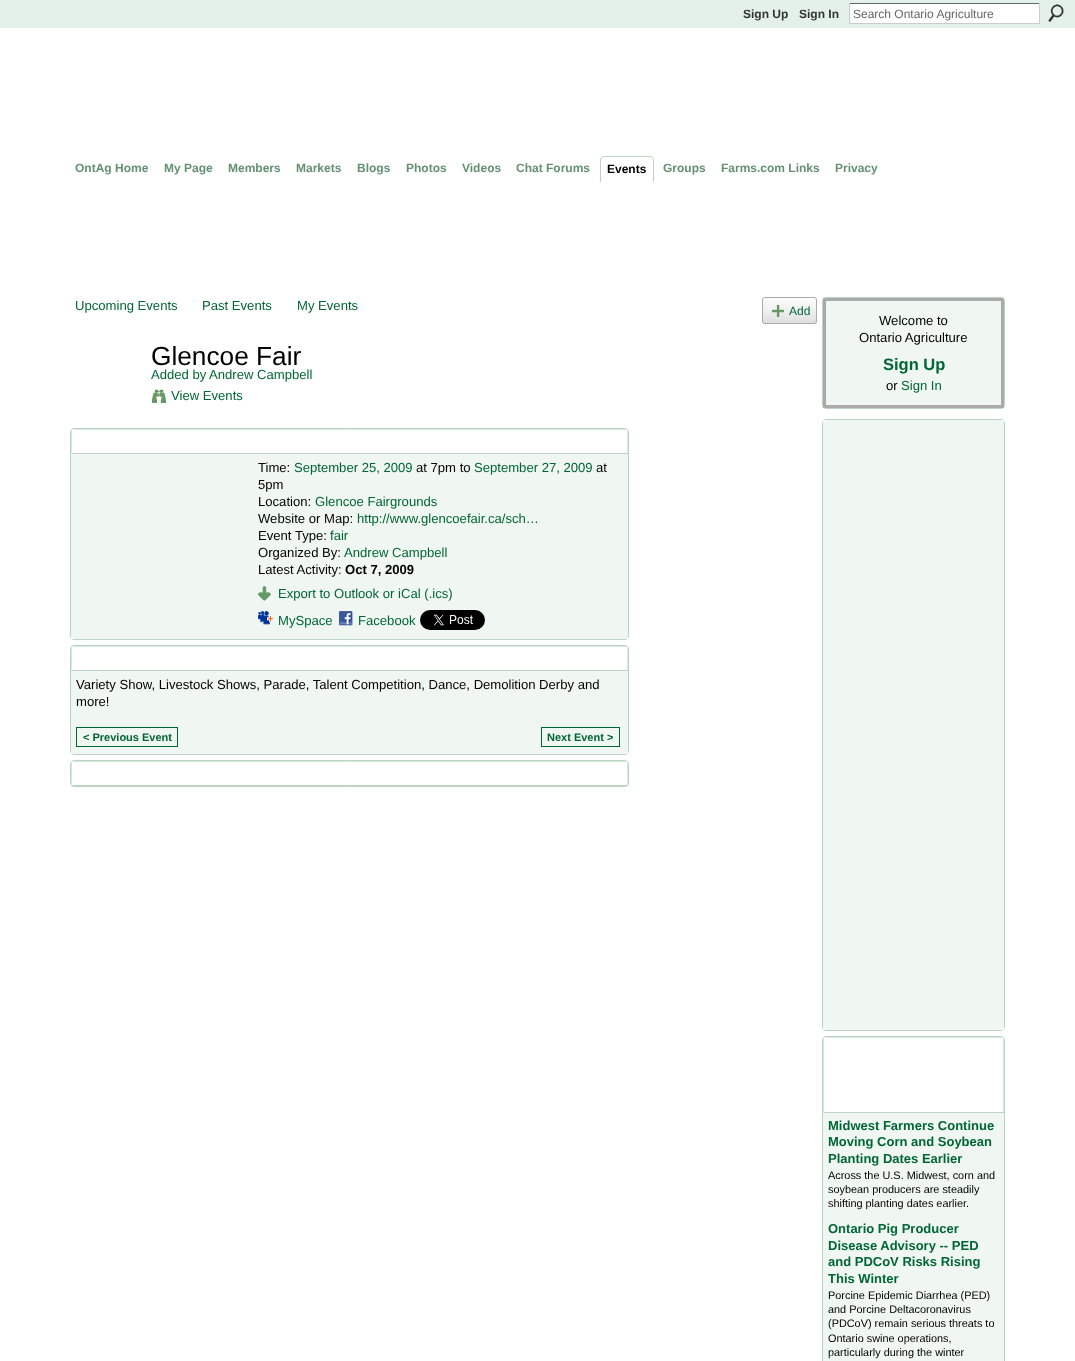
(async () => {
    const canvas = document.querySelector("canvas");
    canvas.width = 1075;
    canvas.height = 1361;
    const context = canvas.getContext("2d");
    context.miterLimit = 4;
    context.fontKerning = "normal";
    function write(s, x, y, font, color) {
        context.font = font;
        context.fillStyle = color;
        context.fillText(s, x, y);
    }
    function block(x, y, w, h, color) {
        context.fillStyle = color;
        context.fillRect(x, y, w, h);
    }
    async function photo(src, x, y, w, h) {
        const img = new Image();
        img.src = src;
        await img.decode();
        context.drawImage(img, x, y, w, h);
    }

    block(0, 0, 1075, 1361, "rgb(255, 255, 255)");
    block(0, 0, 1075, 28, "rgb(227, 241, 232)");
    write("Sign Up", 743, 18, "bold 12px Liberation Sans", "rgb(51, 51, 51)");
    write("Sign In", 799, 18, "bold 12px Liberation Sans", "rgb(51, 51, 51)");
    block(850, 4, 189, 19, "rgb(255, 255, 255)");
    block(849, 3, 191, 1, "rgb(102, 102, 102)");
    block(1039, 3, 1, 21, "rgb(204, 204, 204)");
    block(849, 23, 191, 1, "rgb(204, 204, 204)");
    block(849, 3, 1, 21, "rgb(204, 204, 204)");
    write("Search Ontario Agriculture", 853, 18, "12px Liberation Sans", "rgb(102, 102, 102)");
    await photo("media/1.png", 1048, 4, 16, 18);
    write("OntAg Home", 75, 172, "bold 12px Liberation Sans", "rgb(100, 145, 115)");
    write("My Page", 164, 172, "bold 12px Liberation Sans", "rgb(100, 145, 115)");
    write("Members", 228, 172, "bold 12px Liberation Sans", "rgb(100, 145, 115)");
    write("Markets", 296, 172, "bold 12px Liberation Sans", "rgb(100, 145, 115)");
    write("Blogs", 357, 172, "bold 12px Liberation Sans", "rgb(100, 145, 115)");
    write("Photos", 406, 172, "bold 12px Liberation Sans", "rgb(100, 145, 115)");
    write("Videos", 462, 172, "bold 12px Liberation Sans", "rgb(100, 145, 115)");
    write("Chat Forums", 516, 172, "bold 12px Liberation Sans", "rgb(100, 145, 115)");
    context.fillStyle = "rgb(188, 212, 196)";
    context.beginPath();
    context.moveTo(604, 156);
    context.lineTo(650, 156);
    context.bezierCurveTo(652, 156, 654, 158, 654, 160);
    context.lineTo(654, 182);
    context.lineTo(600, 182);
    context.lineTo(600, 160);
    context.bezierCurveTo(600, 158, 602, 156, 604, 156);
    context.closePath();
    context.moveTo(604, 157);
    context.lineTo(650, 157);
    context.bezierCurveTo(652, 157, 653, 158, 653, 160);
    context.lineTo(653, 182);
    context.lineTo(601, 182);
    context.lineTo(601, 160);
    context.bezierCurveTo(601, 158, 602, 157, 604, 157);
    context.closePath();
    context.fill("evenodd");
    write("Events", 607, 173, "bold 12px Liberation Sans", "rgb(0, 0, 0)");
    write("Groups", 663, 172, "bold 12px Liberation Sans", "rgb(100, 145, 115)");
    write("Farms.com Links", 721, 172, "bold 12px Liberation Sans", "rgb(100, 145, 115)");
    write("Privacy", 835, 172, "bold 12px Liberation Sans", "rgb(100, 145, 115)");
    write("Upcoming Events", 75, 310, "13.1px Liberation Sans", "rgb(0, 102, 51)");
    write("Past Events", 202, 310, "13.1px Liberation Sans", "rgb(0, 102, 51)");
    write("My Events", 297, 310, "13.1px Liberation Sans", "rgb(0, 102, 51)");
    await photo("media/2.png", 762, 300, 55, 24);
    context.beginPath();
    context.roundRect(762.5, 297.5, 54, 26, 2.5);
    context.strokeStyle = "rgb(170, 170, 170)";
    context.stroke();
    await photo("media/3.png", 772, 305, 12, 12);
    write("Add", 789, 315, "12px Liberation Sans", "rgb(0, 102, 51)");
    write("Glencoe Fair", 151, 365, "26.25px Liberation Sans", "rgb(0, 0, 0)");
    write("Added by", 151, 379, "13.1px Liberation Sans", "rgb(0, 102, 51)");
    write("Andrew Campbell", 209, 379, "13.1px Liberation Sans", "rgb(0, 102, 51)");
    await photo("media/4.png", 152, 389, 14, 14);
    write("View Events", 171, 400, "13.1px Liberation Sans", "rgb(0, 102, 51)");
    context.beginPath();
    context.roundRect(70.5, 428.5, 558, 211, 3.5);
    context.strokeStyle = "rgb(188, 212, 196)";
    context.stroke();
    block(71, 429, 557, 1, "rgb(217, 233, 222)");
    block(627, 429, 1, 25, "rgb(217, 233, 222)");
    block(71, 453, 557, 1, "rgb(188, 212, 196)");
    block(71, 429, 1, 25, "rgb(217, 233, 222)");
    block(71, 454, 557, 185, "rgb(240, 247, 242)");
    write("Time:", 258, 472, "13.1px Liberation Sans", "rgb(0, 0, 0)");
    write("September 25, 2009", 294, 472, "13.1px Liberation Sans", "rgb(0, 102, 51)");
    write("at 7pm to", 416, 472, "13.1px Liberation Sans", "rgb(0, 0, 0)");
    write("September 27, 2009", 474, 472, "13.1px Liberation Sans", "rgb(0, 102, 51)");
    write("at", 596, 472, "13.1px Liberation Sans", "rgb(0, 0, 0)");
    write("5pm", 258, 489, "13.1px Liberation Sans", "rgb(0, 0, 0)");
    write("Location:", 258, 506, "13.1px Liberation Sans", "rgb(0, 0, 0)");
    write("Glencoe Fairgrounds", 315, 506, "13.1px Liberation Sans", "rgb(0, 102, 51)");
    write("Website or Map:", 258, 523, "13.1px Liberation Sans", "rgb(0, 0, 0)");
    write("http://www.glencoefair.ca/sch…", 357, 523, "13.1px Liberation Sans", "rgb(0, 102, 51)");
    write("Event Type:", 258, 540, "13.1px Liberation Sans", "rgb(0, 0, 0)");
    write("fair", 330, 540, "13.1px Liberation Sans", "rgb(0, 102, 51)");
    write("Organized By:", 258, 557, "13.1px Liberation Sans", "rgb(0, 0, 0)");
    write("Andrew Campbell", 344, 557, "13.1px Liberation Sans", "rgb(0, 102, 51)");
    write("Latest Activity:", 258, 574, "13.1px Liberation Sans", "rgb(0, 0, 0)");
    write("Oct 7, 2009", 345, 574, "bold 13.1px Liberation Sans", "rgb(0, 0, 0)");
    await photo("media/5.png", 258, 586, 13, 15);
    write("Export to Outlook or iCal (.ics)", 278, 598, "13.1px Liberation Sans", "rgb(0, 102, 51)");
    await photo("media/6.png", 258, 611, 16, 14);
    write("MySpace", 278, 625, "13.1px Liberation Sans", "rgb(0, 102, 51)");
    await photo("media/7.png", 339, 611, 14, 15);
    write("Facebook", 358, 625, "13.1px Liberation Sans", "rgb(0, 102, 51)");
    await photo("media/8.png", 420, 610, 65, 20);
    context.beginPath();
    context.roundRect(70.5, 645.5, 558, 109, 3.5);
    context.stroke();
    block(71, 646, 557, 1, "rgb(217, 233, 222)");
    block(627, 646, 1, 25, "rgb(217, 233, 222)");
    block(71, 670, 557, 1, "rgb(188, 212, 196)");
    block(71, 646, 1, 25, "rgb(217, 233, 222)");
    block(71, 671, 557, 83, "rgb(240, 247, 242)");
    write("Variety Show, Livestock Shows, Parade, Talent Competition, Dance, Demolition Derby and", 76, 689, "13.1px Liberation Sans", "rgb(0, 0, 0)");
    write("more!", 76, 706, "13.1px Liberation Sans", "rgb(0, 0, 0)");
    context.strokeStyle = "rgb(0, 102, 51)";
    context.strokeRect(76.5, 727.5, 101, 19);
    write("< Previous Event", 83, 741, "bold 11px Liberation Sans", "rgb(0, 102, 51)");
    context.strokeRect(541.5, 727.5, 78, 19);
    write("Next Event >", 547, 741, "bold 11px Liberation Sans", "rgb(0, 102, 51)");
    context.beginPath();
    context.roundRect(70.5, 760.5, 558, 26, 3.5);
    context.strokeStyle = "rgb(188, 212, 196)";
    context.stroke();
    block(71, 761, 557, 1, "rgb(217, 233, 222)");
    block(627, 761, 1, 25, "rgb(217, 233, 222)");
    block(71, 785, 557, 1, "rgb(188, 212, 196)");
    block(71, 761, 1, 25, "rgb(217, 233, 222)");
    context.beginPath();
    context.roundRect(822.5, 297.5, 182, 111, 3.5);
    context.stroke();
    context.fillStyle = "rgb(240, 247, 242)";
    context.beginPath();
    context.rect(824.5, 299.5, 178, 107);
    context.fill();
    context.strokeStyle = "rgb(170, 170, 170)";
    context.lineWidth = 3;
    context.stroke();
    write("Welcome to", 879, 325, "13.1px Liberation Sans", "rgb(0, 0, 0)");
    write("Ontario Agriculture", 859, 342, "13.1px Liberation Sans", "rgb(0, 0, 0)");
    write("Sign Up", 883, 370, "bold 16.5px Liberation Sans", "rgb(0, 102, 51)");
    write("or", 886, 390, "13.1px Liberation Sans", "rgb(0, 0, 0)");
    write("Sign In", 901, 390, "13.1px Liberation Sans", "rgb(0, 102, 51)");
    context.beginPath();
    context.roundRect(822.5, 419.5, 182, 611, 3.5);
    context.strokeStyle = "rgb(188, 212, 196)";
    context.lineWidth = 1;
    context.stroke();
    block(823, 420, 181, 610, "rgb(240, 247, 242)");
    context.beginPath();
    context.roundRect(822.5, 1036.5, 182, 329, 3.5);
    context.stroke();
    block(823, 1037, 181, 1, "rgb(217, 233, 222)");
    block(1003, 1037, 1, 76, "rgb(217, 233, 222)");
    block(823, 1112, 181, 1, "rgb(188, 212, 196)");
    block(823, 1037, 1, 76, "rgb(217, 233, 222)");
    block(823, 1113, 181, 248, "rgb(240, 247, 242)");
    write("Midwest Farmers Continue", 828, 1130, "bold 13px Liberation Sans", "rgb(0, 102, 51)");
    write("Moving Corn and Soybean", 828, 1146, "bold 13px Liberation Sans", "rgb(0, 102, 51)");
    write("Planting Dates Earlier", 828, 1163, "bold 13px Liberation Sans", "rgb(0, 102, 51)");
    write("Across the U.S. Midwest, corn and", 828, 1179, "10.9px Liberation Sans", "rgb(0, 0, 0)");
    write("soybean producers are steadily", 828, 1193, "10.9px Liberation Sans", "rgb(0, 0, 0)");
    write("shifting planting dates earlier.", 828, 1207, "10.9px Liberation Sans", "rgb(0, 0, 0)");
    write("Ontario Pig Producer", 828, 1233, "bold 13px Liberation Sans", "rgb(0, 102, 51)");
    write("Disease Advisory -- PED", 828, 1250, "bold 13px Liberation Sans", "rgb(0, 102, 51)");
    write("and PDCoV Risks Rising", 828, 1266, "bold 13px Liberation Sans", "rgb(0, 102, 51)");
    write("This Winter", 828, 1283, "bold 13px Liberation Sans", "rgb(0, 102, 51)");
    write("Porcine Epidemic Diarrhea (PED)", 828, 1299, "10.9px Liberation Sans", "rgb(0, 0, 0)");
    write("and Porcine Deltacoronavirus", 828, 1313, "10.9px Liberation Sans", "rgb(0, 0, 0)");
    write("(PDCoV) remain serious threats to", 828, 1327, "10.9px Liberation Sans", "rgb(0, 0, 0)");
    write("Ontario swine operations,", 828, 1342, "10.9px Liberation Sans", "rgb(0, 0, 0)");
    write("particularly during the winter", 828, 1356, "10.9px Liberation Sans", "rgb(0, 0, 0)");
})();
